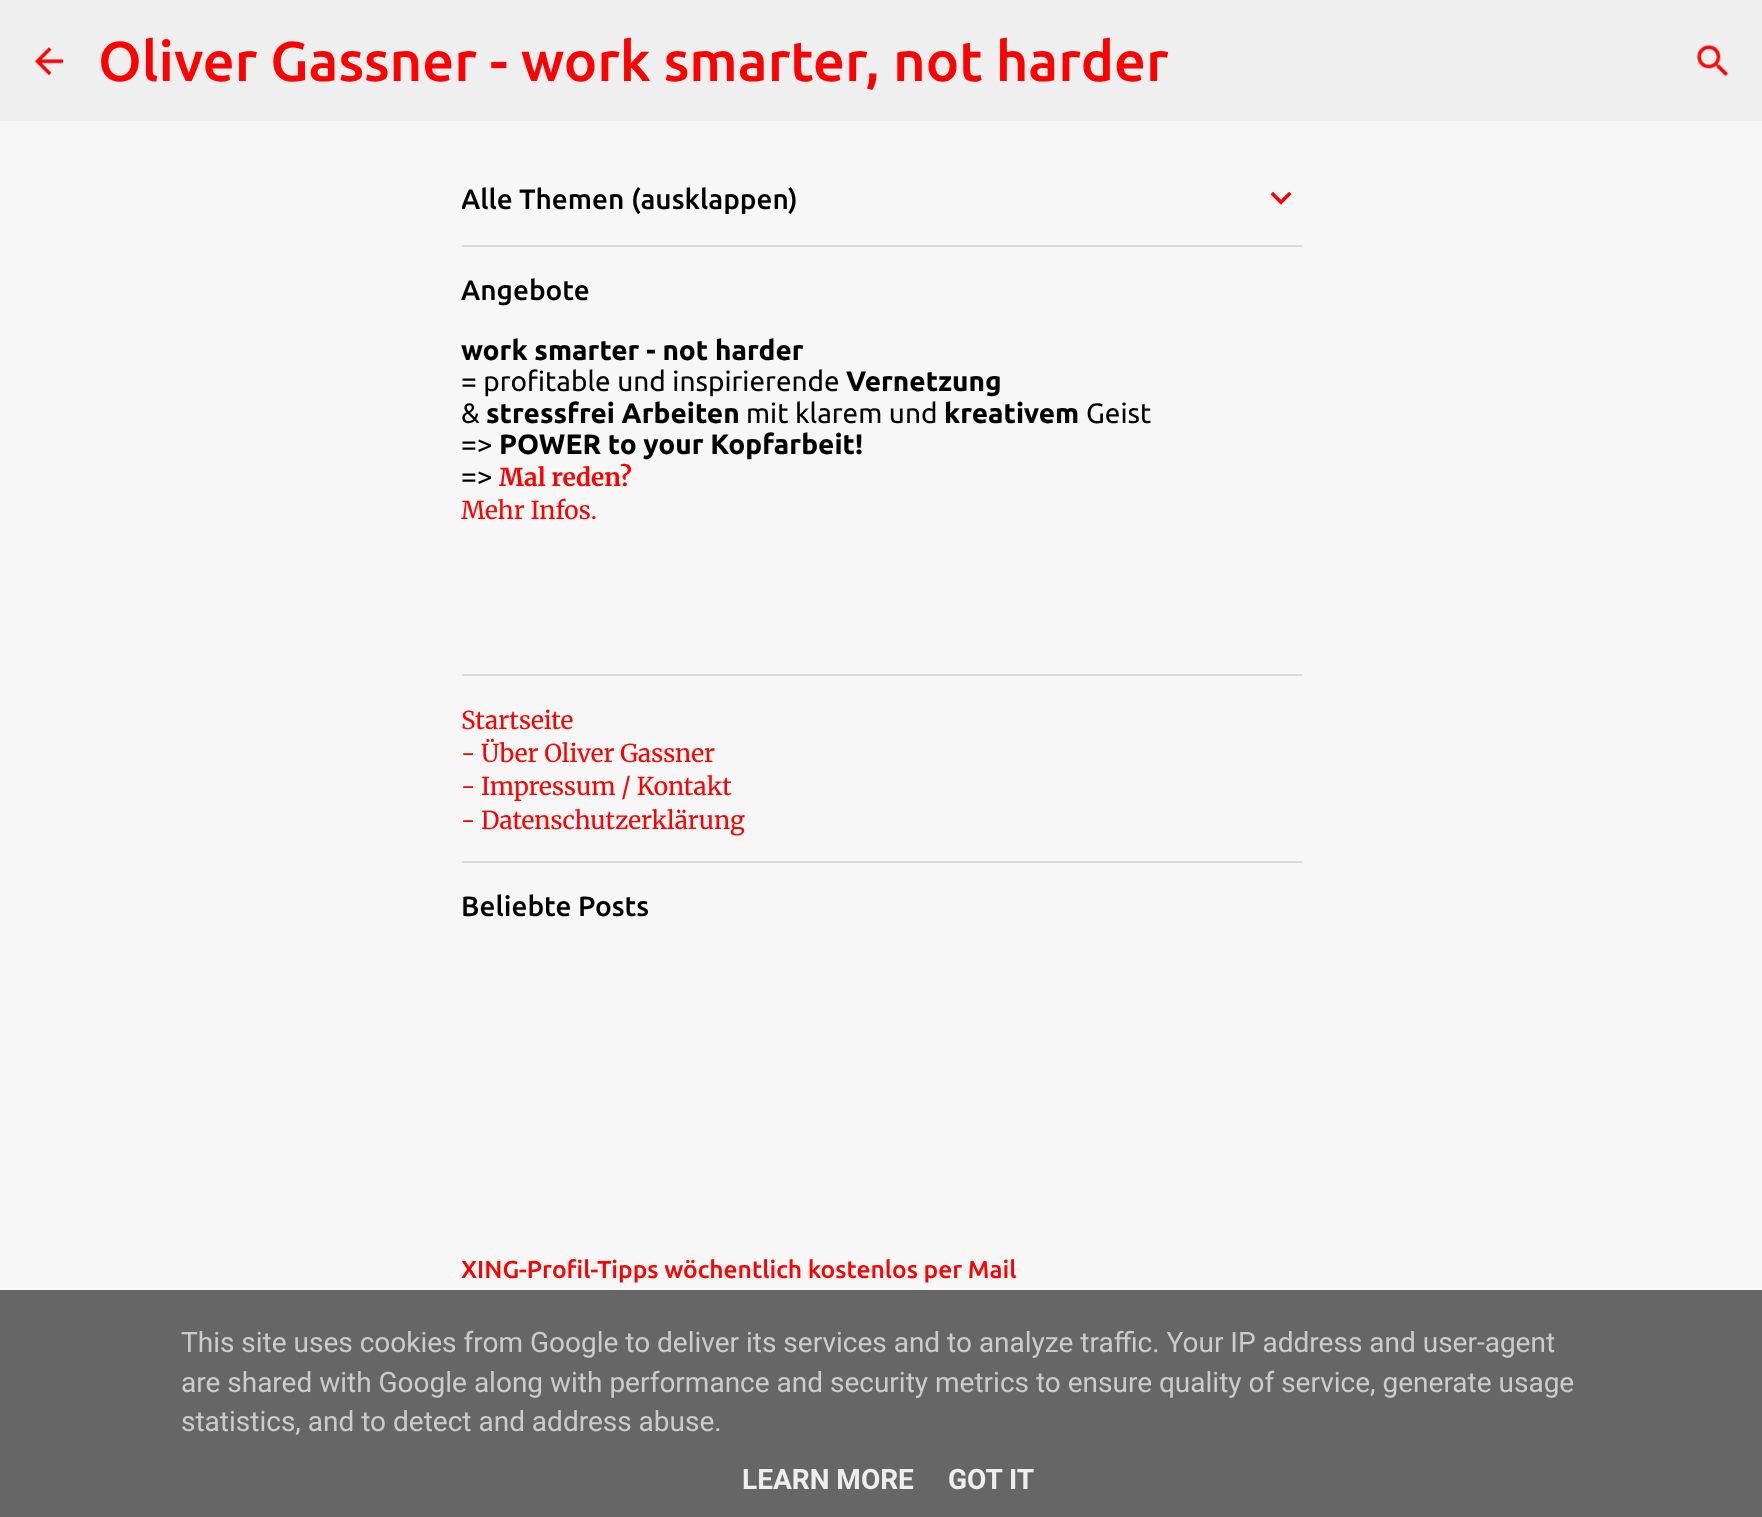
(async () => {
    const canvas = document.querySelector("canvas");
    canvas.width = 1762;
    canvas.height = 1517;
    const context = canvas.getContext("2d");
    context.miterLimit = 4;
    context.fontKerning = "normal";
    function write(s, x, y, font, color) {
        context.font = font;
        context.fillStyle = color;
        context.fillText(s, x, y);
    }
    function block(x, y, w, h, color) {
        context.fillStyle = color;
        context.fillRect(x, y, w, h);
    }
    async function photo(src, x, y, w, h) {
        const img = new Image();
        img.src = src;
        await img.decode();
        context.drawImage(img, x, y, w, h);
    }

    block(0, 0, 1762, 1517, "rgb(247, 247, 247)");
    block(0, 0, 1762, 121, "rgb(239, 239, 239)");
    await photo("media/1.png", 35, 47, 28, 29);
    write("Oliver Gassner - work smarter, not harder", 98, 81, "500 56px Ubuntu", "rgb(255, 0, 0)");
    await photo("media/2.png", 1697, 45, 32, 32);
    context.save();
    context.beginPath();
    context.rect(462, 182, 798, 32);
    context.clip();
    write("Alle Themen (ausklappen)", 461, 209, "500 28px Ubuntu", "rgb(0, 0, 0)");
    context.restore();
    await photo("media/3.png", 1270, 191, 22, 14);
    block(462, 245, 840, 2, "rgb(217, 217, 217)");
    write("Angebote", 461, 300, "500 28px Ubuntu", "rgb(0, 0, 0)");
    write("work smarter - not harder", 461, 360, "bold 28px Ubuntu", "rgb(0, 0, 0)");
    write("= profitable und inspirierende", 461, 391, "28px Ubuntu", "rgb(0, 0, 0)");
    write("Vernetzung", 846, 391, "bold 28px Ubuntu", "rgb(0, 0, 0)");
    write("&", 461, 423, "28px Ubuntu", "rgb(0, 0, 0)");
    write("stressfrei Arbeiten", 486, 423, "bold 28px Ubuntu", "rgb(0, 0, 0)");
    write("mit klarem und", 746, 423, "28px Ubuntu", "rgb(0, 0, 0)");
    write("kreativem", 944, 423, "bold 28px Ubuntu", "rgb(0, 0, 0)");
    write("Geist", 1086, 423, "28px Ubuntu", "rgb(0, 0, 0)");
    write("=>", 461, 454, "28px Ubuntu", "rgb(0, 0, 0)");
    write("POWER to your Kopfarbeit!", 499, 454, "bold 28px Ubuntu", "rgb(0, 0, 0)");
    write("=>", 461, 486, "28px Ubuntu", "rgb(0, 0, 0)");
    write("Mal reden?", 499, 486, "300 24.5px Merriweather", "rgb(255, 0, 0)");
    write("Mehr Infos.", 461, 519, "300 24.5px 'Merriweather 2'", "rgb(255, 0, 0)");
    block(462, 674, 840, 2, "rgb(217, 217, 217)");
    write("Startseite", 461, 729, "300 24.5px 'Merriweather 2'", "rgb(255, 0, 0)");
    write("- Über Oliver Gassner", 461, 762, "300 24.5px 'Merriweather 2'", "rgb(255, 0, 0)");
    write("- Impressum / Kontakt", 461, 795, "300 24.5px 'Merriweather 2'", "rgb(255, 0, 0)");
    write("- Datenschutzerklärung", 461, 829, "300 24.5px 'Merriweather 2'", "rgb(255, 0, 0)");
    block(462, 861, 840, 2, "rgb(217, 217, 217)");
    write("Beliebte Posts", 461, 916, "500 28px Ubuntu", "rgb(0, 0, 0)");
    write("XING-Profil-Tipps wöchentlich kostenlos per Mail", 461, 1278, "500 24.5px Ubuntu", "rgb(255, 0, 0)");
    block(0, 1290, 1762, 227, "rgb(102, 102, 102)");
    write("This site uses cookies from Google to deliver its services and to analyze traffic. Your IP address and user-agent", 181, 1352, "28px Roboto", "rgb(204, 204, 204)");
    write("are shared with Google along with performance and security metrics to ensure quality of service, generate usage", 181, 1392, "28px Roboto", "rgb(204, 204, 204)");
    write("statistics, and to detect and address abuse.", 181, 1431, "28px Roboto", "rgb(204, 204, 204)");
    write("LEARN MORE", 742, 1489, "bold 28px Roboto", "rgb(238, 238, 238)");
    write("GOT IT", 948, 1489, "bold 28px Roboto", "rgb(238, 238, 238)");
})();
